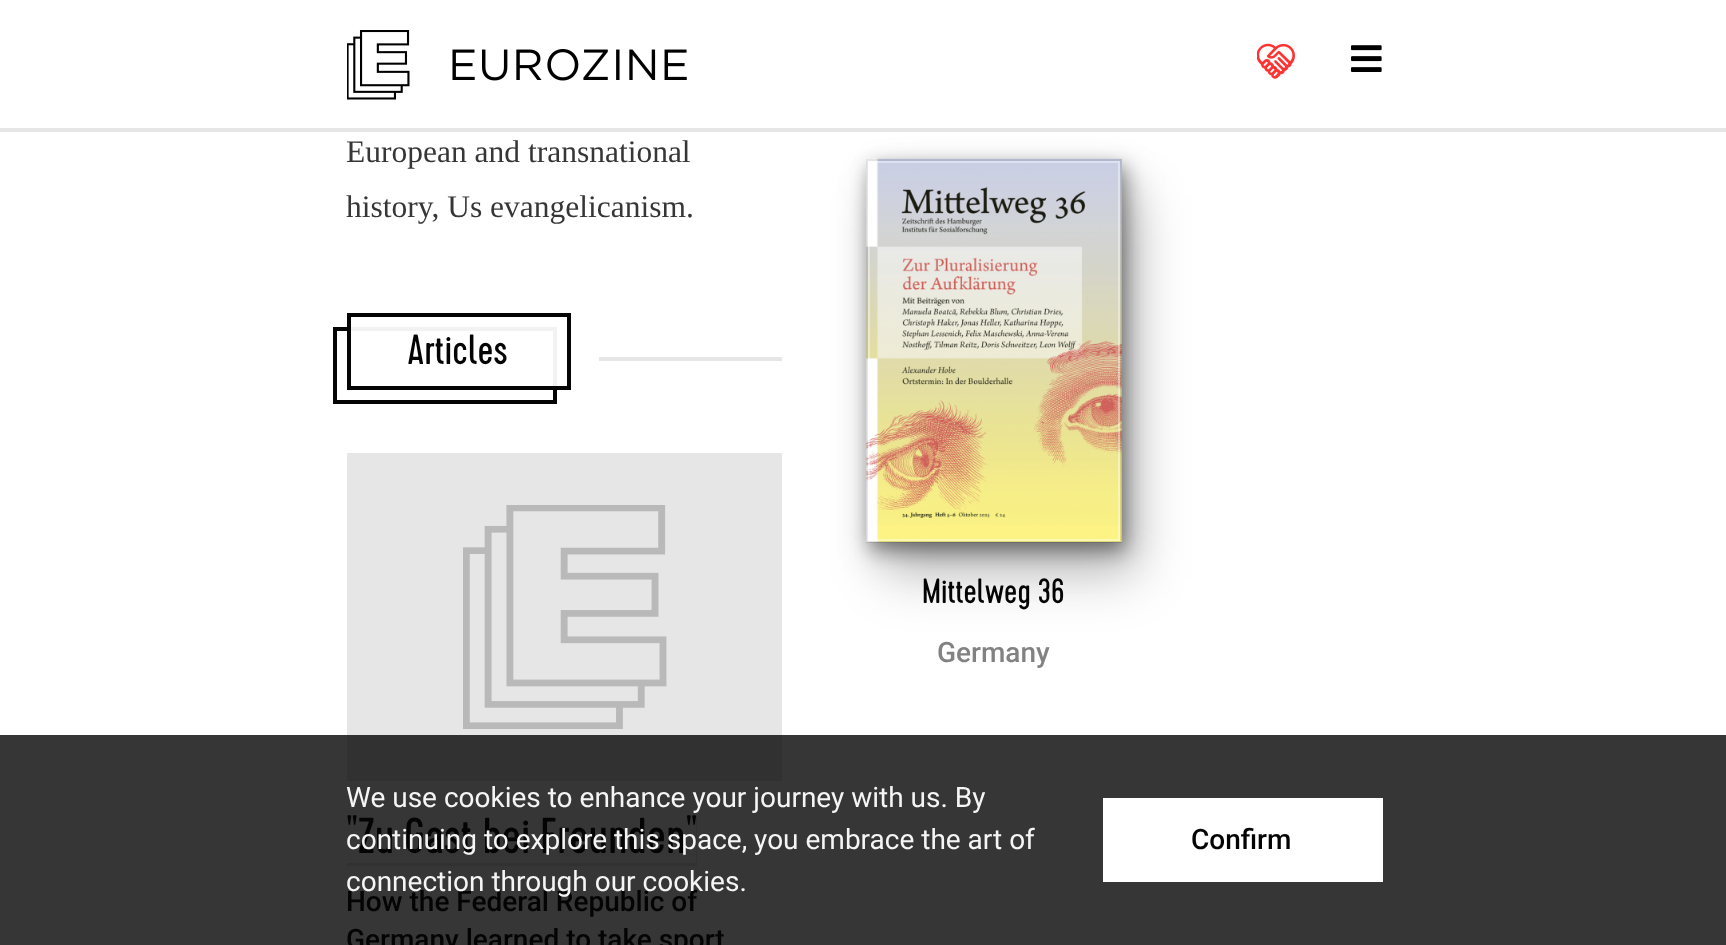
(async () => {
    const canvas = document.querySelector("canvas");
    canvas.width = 1726;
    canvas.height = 945;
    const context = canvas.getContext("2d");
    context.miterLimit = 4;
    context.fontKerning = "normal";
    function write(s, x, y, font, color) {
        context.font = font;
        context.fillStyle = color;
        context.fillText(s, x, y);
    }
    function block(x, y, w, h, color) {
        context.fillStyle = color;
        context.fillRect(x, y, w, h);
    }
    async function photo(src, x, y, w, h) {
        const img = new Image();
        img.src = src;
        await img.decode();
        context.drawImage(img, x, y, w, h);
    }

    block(0, 0, 1726, 945, "rgb(255, 255, 255)");
    block(0, 735, 1726, 210, "rgb(54, 54, 54)");
    context.fillStyle = "rgba(4, 4, 4, 0.2)";
    context.filter = "blur(17.5px)";
    context.beginPath();
    context.rect(873, 173, 256, 384);
    context.fill();
    context.filter = "none";
    context.filter = "blur(26px)";
    context.beginPath();
    context.rect(884, 194, 255, 384);
    context.fill();
    context.filter = "none";
    block(0, 128, 1726, 4, "rgb(230, 230, 230)");
    await photo("media/1.png", 347, 30, 63, 70);
    await photo("media/2.png", 452, 49, 235, 32);
    await photo("media/3.png", 1257, 43, 38, 36);
    await photo("media/4.png", 1351, 45, 31, 27);
    write("European and transnational", 346, 162, "31.5px Liberation Serif", "rgb(54, 54, 54)");
    write("history, Us evangelicanism.", 346, 217, "31.5px Liberation Serif", "rgb(54, 54, 54)");
    context.strokeStyle = "rgb(4, 4, 4)";
    context.lineWidth = 4;
    context.strokeRect(335, 329, 220, 73);
    block(351, 327, 206, 59, "rgba(255, 255, 255, 0.95)");
    context.strokeRect(349, 315, 220, 73);
    write("Articles", 407, 364, "42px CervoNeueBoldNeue", "rgb(4, 4, 4)");
    block(599, 357, 183, 4, "rgb(230, 230, 230)");
    block(347, 453, 435, 282, "rgb(230, 230, 230)");
    block(347, 735, 435, 46, "rgb(49, 49, 49)");
    await photo("media/5.png", 463, 505, 204, 224);
    context.beginPath();
    context.moveTo(347, 863);
    context.lineTo(347, 866);
    context.lineTo(697, 866);
    context.lineTo(697, 816);
    context.lineTo(696, 816);
    context.lineTo(696, 863);
    context.closePath();
    context.fill();
    write("\"Zu Gast bei Freunden\"", 346, 853, "50.5px CervoNeueBoldNeue", "rgb(4, 4, 4)");
    write("How the Federal Republic of", 346, 911, "500 28px Roboto", "rgb(4, 4, 4)");
    write("Germany learned to take sport", 346, 949, "500 28px Roboto", "rgb(4, 4, 4)");
    context.fillStyle = "rgba(4, 4, 4, 0.4)";
    context.filter = "blur(9px)";
    context.beginPath();
    context.rect(870, 166, 255, 384);
    context.fill();
    context.filter = "none";
    await photo("media/6.png", 866, 158, 256, 384);
    context.strokeStyle = "rgba(255, 255, 255, 0.4)";
    context.lineWidth = 2;
    context.strokeRect(869, 162, 250, 378);
    context.strokeStyle = "rgba(4, 4, 4, 0.1)";
    context.strokeRect(867, 160, 254, 382);
    write("Mittelweg 36", 922, 603, "35px CervoNeueBoldNeue", "rgb(4, 4, 4)");
    write("Germany", 937, 662, "500 28px Roboto", "rgb(130, 130, 130)");
    write("We use cookies to enhance your journey with us. By", 346, 807, "28px Roboto", "rgb(245, 245, 245)");
    write("continuing to explore this space, you embrace the art of", 346, 849, "28px Roboto", "rgb(245, 245, 245)");
    write("connection through our cookies.", 346, 891, "28px Roboto", "rgb(245, 245, 245)");
    block(1103, 798, 280, 84, "rgb(255, 255, 255)");
    write("Confirm", 1191, 849, "500 28px Roboto", "rgb(4, 4, 4)");
})();
